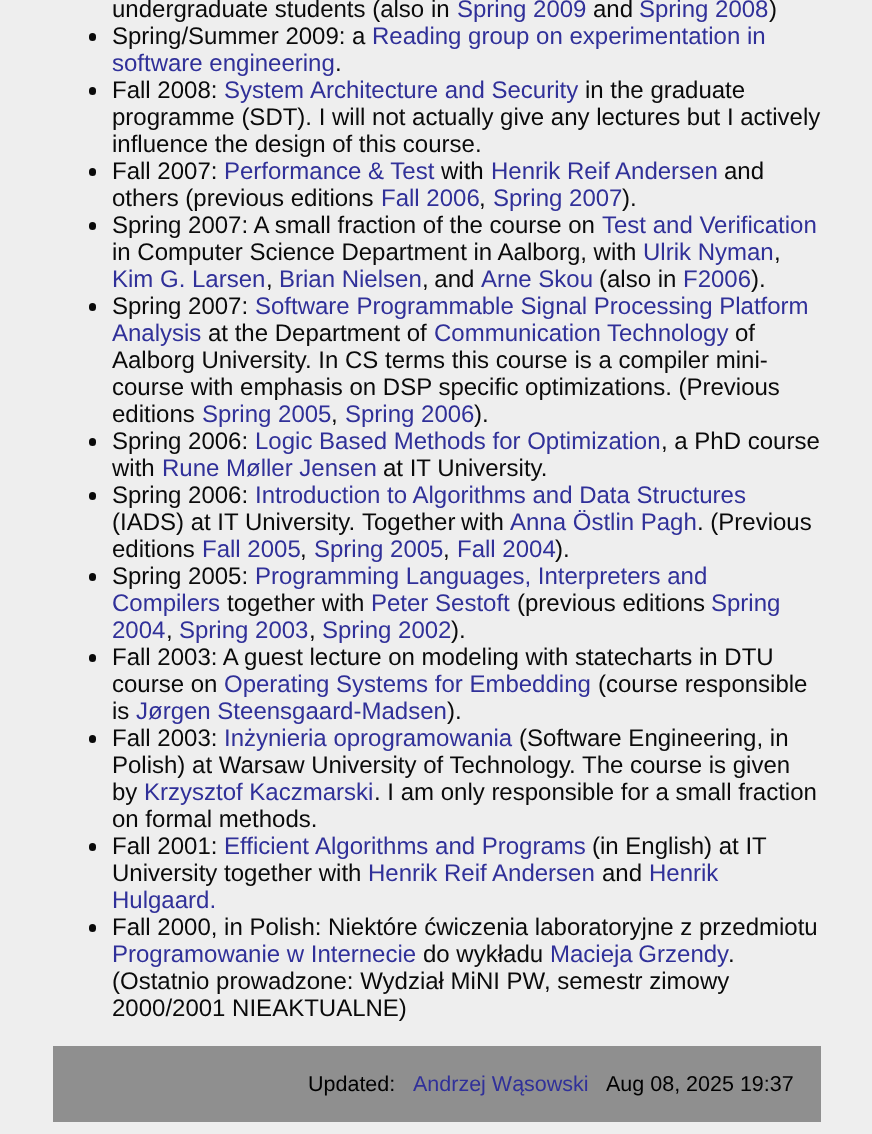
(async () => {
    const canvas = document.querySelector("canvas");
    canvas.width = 872;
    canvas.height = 1134;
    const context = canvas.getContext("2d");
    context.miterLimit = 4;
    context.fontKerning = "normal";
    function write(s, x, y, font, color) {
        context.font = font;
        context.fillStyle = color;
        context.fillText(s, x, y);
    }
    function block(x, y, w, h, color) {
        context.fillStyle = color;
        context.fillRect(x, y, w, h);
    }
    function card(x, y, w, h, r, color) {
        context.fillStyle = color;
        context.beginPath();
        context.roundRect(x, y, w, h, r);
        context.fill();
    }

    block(0, 0, 872, 1134, "rgb(238, 238, 238)");
    write("undergraduate students (also in", 112, 17, "24px Liberation Sans", "rgb(10, 10, 10)");
    write("Spring 2009", 457, 17, "24px Liberation Sans", "rgb(48, 48, 153)");
    write("and", 593, 17, "24px Liberation Sans", "rgb(10, 10, 10)");
    write("Spring 2008", 639, 17, "24px Liberation Sans", "rgb(48, 48, 153)");
    write(")", 769, 17, "24px Liberation Sans", "rgb(10, 10, 10)");
    card(89, 33, 7, 8, 3.5, "rgb(10, 10, 10)");
    write("Spring/Summer 2009: a", 112, 44, "24px Liberation Sans", "rgb(10, 10, 10)");
    write("Reading group on experimentation in", 372, 44, "24px Liberation Sans", "rgb(48, 48, 153)");
    write("software engineering", 112, 71, "24px Liberation Sans", "rgb(48, 48, 153)");
    write(".", 335, 71, "24px Liberation Sans", "rgb(10, 10, 10)");
    card(89, 87, 7, 8, 3.5, "rgb(10, 10, 10)");
    write("Fall 2008:", 112, 98, "24px Liberation Sans", "rgb(10, 10, 10)");
    write("System", 224, 98, "24px Liberation Sans", "rgb(48, 48, 153)");
    write("Architecture and Security", 310, 98, "24px Liberation Sans", "rgb(48, 48, 153)");
    write("in the graduate", 585, 98, "24px Liberation Sans", "rgb(10, 10, 10)");
    write("programme (SDT). I will not actually give any lectures but I actively", 112, 125, "24px Liberation Sans", "rgb(10, 10, 10)");
    write("influence the design of this course.", 112, 152, "24px Liberation Sans", "rgb(10, 10, 10)");
    card(89, 168, 7, 8, 3.5, "rgb(10, 10, 10)");
    write("Fall 2007:", 112, 179, "24px Liberation Sans", "rgb(10, 10, 10)");
    write("Performance & Test", 224, 179, "24px Liberation Sans", "rgb(48, 48, 153)");
    write("with", 441, 179, "24px Liberation Sans", "rgb(10, 10, 10)");
    write("Henrik Reif Andersen", 491, 179, "24px Liberation Sans", "rgb(48, 48, 153)");
    write("and", 724, 179, "24px Liberation Sans", "rgb(10, 10, 10)");
    write("others (previous editions", 112, 206, "24px Liberation Sans", "rgb(10, 10, 10)");
    write("Fall 2006", 381, 206, "24px Liberation Sans", "rgb(48, 48, 153)");
    write(",", 479, 206, "24px Liberation Sans", "rgb(10, 10, 10)");
    write("Spring 2007", 493, 206, "24px Liberation Sans", "rgb(48, 48, 153)");
    write(").", 622, 206, "24px Liberation Sans", "rgb(10, 10, 10)");
    card(89, 222, 7, 8, 3.5, "rgb(10, 10, 10)");
    write("Spring 2007: A small fraction of the course on", 112, 233, "24px Liberation Sans", "rgb(10, 10, 10)");
    write("Test and Verification", 602, 233, "24px Liberation Sans", "rgb(48, 48, 153)");
    write("in Computer Science Department in Aalborg, with", 112, 260, "24px Liberation Sans", "rgb(10, 10, 10)");
    write("Ulrik Nyman", 643, 260, "24px Liberation Sans", "rgb(48, 48, 153)");
    write(",", 774, 260, "24px Liberation Sans", "rgb(10, 10, 10)");
    write("Kim G. Larsen", 112, 287, "24px Liberation Sans", "rgb(48, 48, 153)");
    write(",", 266, 287, "24px Liberation Sans", "rgb(10, 10, 10)");
    write("Brian Nielsen", 279, 287, "24px Liberation Sans", "rgb(48, 48, 153)");
    context.wordSpacing = "-1px";
    write(", and", 422, 287, "24px Liberation Sans", "rgb(10, 10, 10)");
    context.wordSpacing = "0px";
    write("Arne Skou", 481, 287, "24px Liberation Sans", "rgb(48, 48, 153)");
    write("(also in", 599, 287, "24px Liberation Sans", "rgb(10, 10, 10)");
    write("F2006", 683, 287, "24px Liberation Sans", "rgb(48, 48, 153)");
    write(").", 751, 287, "24px Liberation Sans", "rgb(10, 10, 10)");
    card(89, 303, 7, 8, 3.5, "rgb(10, 10, 10)");
    write("Spring 2007:", 112, 314, "24px Liberation Sans", "rgb(10, 10, 10)");
    write("Software Programmable Signal Processing Platform", 255, 314, "24px Liberation Sans", "rgb(48, 48, 153)");
    write("Analysis", 112, 341, "24px Liberation Sans", "rgb(48, 48, 153)");
    write("at the Department of", 208, 341, "24px Liberation Sans", "rgb(10, 10, 10)");
    write("Communication Technology", 434, 341, "24px Liberation Sans", "rgb(48, 48, 153)");
    write("of", 735, 341, "24px Liberation Sans", "rgb(10, 10, 10)");
    write("Aalborg University. In CS terms this course is a compiler mini-", 112, 368, "24px Liberation Sans", "rgb(10, 10, 10)");
    write("course with emphasis on DSP specific optimizations. (Previous", 112, 395, "24px Liberation Sans", "rgb(10, 10, 10)");
    write("editions", 112, 422, "24px Liberation Sans", "rgb(10, 10, 10)");
    write("Spring 2005", 202, 422, "24px Liberation Sans", "rgb(48, 48, 153)");
    write(",", 331, 422, "24px Liberation Sans", "rgb(10, 10, 10)");
    write("Spring 2006", 345, 422, "24px Liberation Sans", "rgb(48, 48, 153)");
    write(").", 474, 422, "24px Liberation Sans", "rgb(10, 10, 10)");
    card(89, 438, 7, 8, 3.5, "rgb(10, 10, 10)");
    write("Spring 2006:", 112, 449, "24px Liberation Sans", "rgb(10, 10, 10)");
    write("Logic Based Methods for Optimization", 255, 449, "24px Liberation Sans", "rgb(48, 48, 153)");
    write(", a PhD course", 661, 449, "24px Liberation Sans", "rgb(10, 10, 10)");
    write("with", 112, 476, "24px Liberation Sans", "rgb(10, 10, 10)");
    write("Rune Møller Jensen", 162, 476, "24px Liberation Sans", "rgb(48, 48, 153)");
    write("at IT University.", 383, 476, "24px Liberation Sans", "rgb(10, 10, 10)");
    card(89, 492, 7, 8, 3.5, "rgb(10, 10, 10)");
    write("Spring 2006:", 112, 503, "24px Liberation Sans", "rgb(10, 10, 10)");
    write("Introduction to Algorithms and Data Structures", 255, 503, "24px Liberation Sans", "rgb(48, 48, 153)");
    write("(IADS) at IT University.", 112, 530, "24px Liberation Sans", "rgb(10, 10, 10)");
    context.wordSpacing = "-1px";
    write("Together with", 362, 530, "24px Liberation Sans", "rgb(10, 10, 10)");
    context.wordSpacing = "0px";
    write("Anna Östlin Pagh", 510, 530, "24px Liberation Sans", "rgb(48, 48, 153)");
    write(". (Previous", 697, 530, "24px Liberation Sans", "rgb(10, 10, 10)");
    write("editions", 112, 557, "24px Liberation Sans", "rgb(10, 10, 10)");
    write("Fall 2005", 202, 557, "24px Liberation Sans", "rgb(48, 48, 153)");
    write(",", 300, 557, "24px Liberation Sans", "rgb(10, 10, 10)");
    write("Spring 2005", 314, 557, "24px Liberation Sans", "rgb(48, 48, 153)");
    write(",", 443, 557, "24px Liberation Sans", "rgb(10, 10, 10)");
    write("Fall 2004", 457, 557, "24px Liberation Sans", "rgb(48, 48, 153)");
    write(").", 555, 557, "24px Liberation Sans", "rgb(10, 10, 10)");
    card(89, 573, 7, 8, 3.5, "rgb(10, 10, 10)");
    write("Spring 2005:", 112, 584, "24px Liberation Sans", "rgb(10, 10, 10)");
    write("Programming Languages, Interpreters and", 255, 584, "24px Liberation Sans", "rgb(48, 48, 153)");
    write("Compilers", 112, 611, "24px Liberation Sans", "rgb(48, 48, 153)");
    write("together with", 227, 611, "24px Liberation Sans", "rgb(10, 10, 10)");
    write("Peter Sestoft", 371, 611, "24px Liberation Sans", "rgb(48, 48, 153)");
    write("(previous editions", 517, 611, "24px Liberation Sans", "rgb(10, 10, 10)");
    write("Spring", 711, 611, "24px Liberation Sans", "rgb(48, 48, 153)");
    write("2004", 112, 638, "24px Liberation Sans", "rgb(48, 48, 153)");
    write(",", 166, 638, "24px Liberation Sans", "rgb(10, 10, 10)");
    write("Spring 2003", 179, 638, "24px Liberation Sans", "rgb(48, 48, 153)");
    write(",", 309, 638, "24px Liberation Sans", "rgb(10, 10, 10)");
    write("Spring 2002", 322, 638, "24px Liberation Sans", "rgb(48, 48, 153)");
    write(").", 451, 638, "24px Liberation Sans", "rgb(10, 10, 10)");
    card(89, 654, 7, 8, 3.5, "rgb(10, 10, 10)");
    write("Fall 2003: A guest lecture on modeling with statecharts in DTU", 112, 665, "24px Liberation Sans", "rgb(10, 10, 10)");
    write("course on", 112, 692, "24px Liberation Sans", "rgb(10, 10, 10)");
    write("Operating Systems for Embedding", 224, 692, "24px Liberation Sans", "rgb(48, 48, 153)");
    write("(course responsible", 598, 692, "24px Liberation Sans", "rgb(10, 10, 10)");
    write("is", 112, 719, "24px Liberation Sans", "rgb(10, 10, 10)");
    write("Jørgen Steensgaard-Madsen", 136, 719, "24px Liberation Sans", "rgb(48, 48, 153)");
    write(").", 447, 719, "24px Liberation Sans", "rgb(10, 10, 10)");
    card(89, 735, 7, 8, 3.5, "rgb(10, 10, 10)");
    write("Fall 2003:", 112, 746, "24px Liberation Sans", "rgb(10, 10, 10)");
    write("Inżynieria oprogramowania", 224, 746, "24px Liberation Sans", "rgb(48, 48, 153)");
    write("(Software Engineering, in", 519, 746, "24px Liberation Sans", "rgb(10, 10, 10)");
    write("Polish) at Warsaw University of Technology. The course is given", 112, 773, "24px Liberation Sans", "rgb(10, 10, 10)");
    write("by", 112, 800, "24px Liberation Sans", "rgb(10, 10, 10)");
    write("Krzysztof Kaczmarski", 144, 800, "24px Liberation Sans", "rgb(48, 48, 153)");
    write(". I am only responsible for a small fraction", 374, 800, "24px Liberation Sans", "rgb(10, 10, 10)");
    write("on formal methods.", 112, 827, "24px Liberation Sans", "rgb(10, 10, 10)");
    card(89, 843, 7, 8, 3.5, "rgb(10, 10, 10)");
    write("Fall 2001:", 112, 854, "24px Liberation Sans", "rgb(10, 10, 10)");
    write("Efficient", 224, 854, "24px Liberation Sans", "rgb(48, 48, 153)");
    write("Algorithms and Programs", 315, 854, "24px Liberation Sans", "rgb(48, 48, 153)");
    write("(in English) at IT", 592, 854, "24px Liberation Sans", "rgb(10, 10, 10)");
    write("University together with", 112, 881, "24px Liberation Sans", "rgb(10, 10, 10)");
    write("Henrik Reif Andersen", 368, 881, "24px Liberation Sans", "rgb(48, 48, 153)");
    write("and", 602, 881, "24px Liberation Sans", "rgb(10, 10, 10)");
    write("Henrik", 649, 881, "24px Liberation Sans", "rgb(48, 48, 153)");
    write("Hulgaard.", 112, 908, "24px Liberation Sans", "rgb(48, 48, 153)");
    card(89, 924, 7, 8, 3.5, "rgb(10, 10, 10)");
    write("Fall 2000, in Polish: Niektóre ćwiczenia laboratoryjne z przedmiotu", 112, 935, "24px Liberation Sans", "rgb(10, 10, 10)");
    write("Programowanie w Internecie", 112, 962, "24px Liberation Sans", "rgb(48, 48, 153)");
    write("do wykładu", 423, 962, "24px Liberation Sans", "rgb(10, 10, 10)");
    context.wordSpacing = "-1px";
    write("Macieja Grzendy", 550, 962, "24px Liberation Sans", "rgb(48, 48, 153)");
    context.wordSpacing = "0px";
    write(".", 728, 962, "24px Liberation Sans", "rgb(10, 10, 10)");
    write("(Ostatnio prowadzone: Wydział MiNI PW, semestr zimowy", 112, 989, "24px Liberation Sans", "rgb(10, 10, 10)");
    write("2000/2001 NIEAKTUALNE)", 112, 1016, "24px Liberation Sans", "rgb(10, 10, 10)");
    block(53, 1046, 768, 76, "rgb(143, 143, 143)");
    write("Updated:", 308, 1091, "21.5px Liberation Sans", "rgb(0, 0, 0)");
    write("Andrzej Wąsowski", 413, 1091, "21.5px Liberation Sans", "rgb(48, 48, 153)");
    write("Aug 08, 2025 19:37", 606, 1091, "21.5px Liberation Sans", "rgb(0, 0, 0)");
})();
